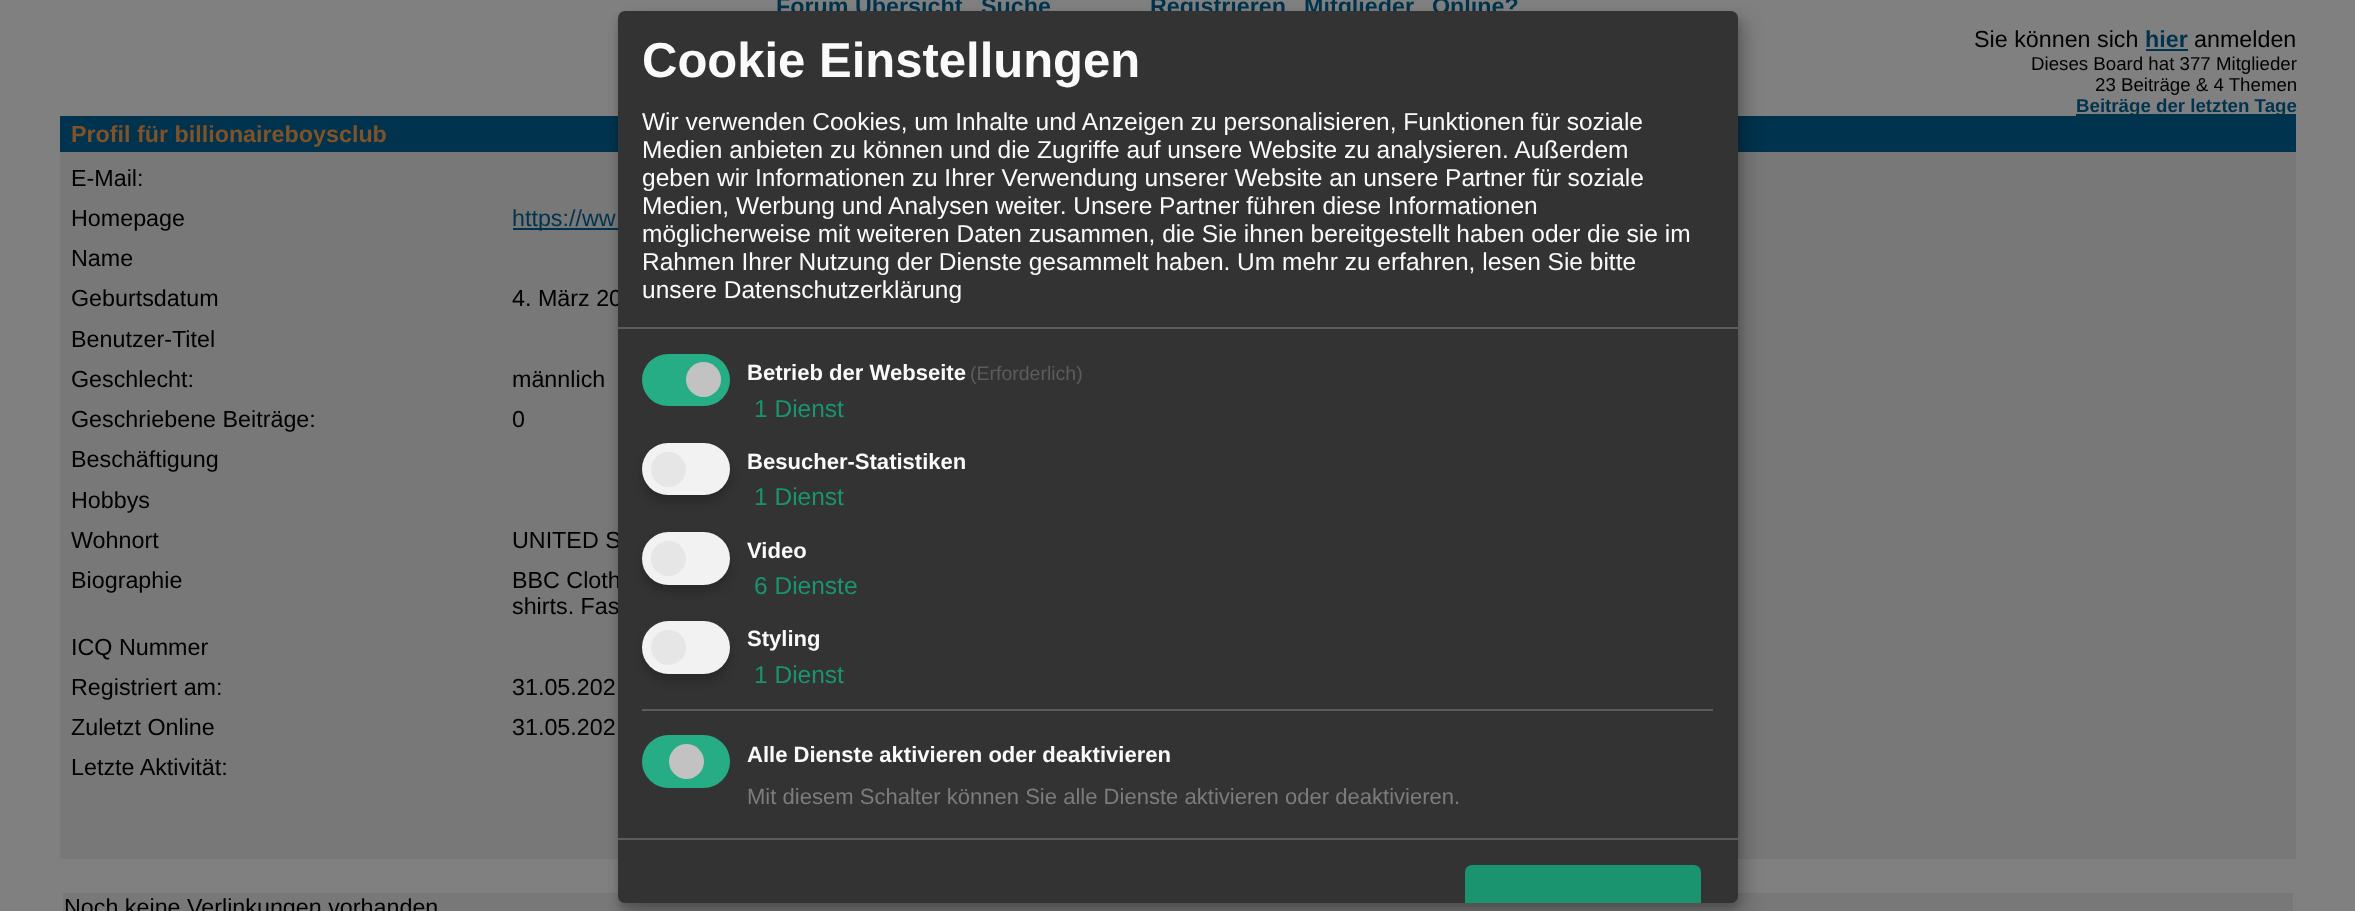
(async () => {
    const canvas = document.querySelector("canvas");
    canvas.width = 2355;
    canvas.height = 911;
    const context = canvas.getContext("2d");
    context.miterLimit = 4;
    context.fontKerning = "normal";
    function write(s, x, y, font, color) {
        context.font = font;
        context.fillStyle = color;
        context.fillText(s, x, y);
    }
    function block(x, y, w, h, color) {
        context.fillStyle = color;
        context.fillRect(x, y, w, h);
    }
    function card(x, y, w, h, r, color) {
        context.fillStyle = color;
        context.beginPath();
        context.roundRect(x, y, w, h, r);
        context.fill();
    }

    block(0, 0, 2355, 911, "rgb(128, 128, 128)");
    write("Forum Übersicht", 776, 14, "bold 23.3px Liberation Sans", "rgb(0, 51, 77)");
    write("Suche", 981, 14, "bold 23.3px Liberation Sans", "rgb(0, 51, 77)");
    write("Registrieren", 1150, 14, "bold 23.3px Liberation Sans", "rgb(0, 51, 77)");
    write("Mitglieder", 1304, 14, "bold 23.3px Liberation Sans", "rgb(0, 51, 77)");
    write("Online?", 1432, 14, "bold 23.3px Liberation Sans", "rgb(0, 51, 77)");
    write("Sie können sich", 1974, 47, "23.3px Liberation Sans", "rgb(0, 0, 0)");
    write("hier", 2145, 47, "bold 23.3px Liberation Sans", "rgb(0, 51, 77)");
    block(2146, 49, 42, 2, "rgb(0, 51, 77)");
    write("anmelden", 2194, 47, "23.3px Liberation Sans", "rgb(0, 0, 0)");
    write("Dieses Board hat 377 Mitglieder", 2031, 70, "18.7px Liberation Sans", "rgb(0, 0, 0)");
    write("23 Beiträge & 4 Themen", 2095, 91, "18.7px Liberation Sans", "rgb(0, 0, 0)");
    block(2076, 114, 220, 2, "rgb(0, 51, 77)");
    write("Beiträge der letzten Tage", 2076, 112, "bold 18.7px Liberation Sans", "rgb(0, 51, 77)");
    block(60, 116, 2236, 36, "rgb(0, 51, 77)");
    write("Profil für billionaireboysclub", 71, 142, "bold 23.3px Liberation Sans", "rgb(128, 82, 40)");
    block(60, 152, 558, 707, "rgb(120, 120, 120)");
    write("E-Mail:", 71, 186, "23.3px Liberation Sans", "rgb(0, 0, 0)");
    write("Homepage", 71, 226, "23.3px Liberation Sans", "rgb(0, 0, 0)");
    block(513, 228, 105, 2, "rgb(0, 51, 77)");
    write("https://ww", 512, 226, "23.3px Liberation Sans", "rgb(0, 51, 77)");
    write("Name", 71, 266, "23.3px Liberation Sans", "rgb(0, 0, 0)");
    write("Geburtsdatum", 71, 306, "23.3px Liberation Sans", "rgb(0, 0, 0)");
    write("4. März 20", 512, 306, "23.3px Liberation Sans", "rgb(0, 0, 0)");
    write("Benutzer-Titel", 71, 347, "23.3px Liberation Sans", "rgb(0, 0, 0)");
    write("Geschlecht:", 71, 387, "23.3px Liberation Sans", "rgb(0, 0, 0)");
    write("männlich", 512, 387, "23.3px Liberation Sans", "rgb(0, 0, 0)");
    write("Geschriebene Beiträge:", 71, 427, "23.3px Liberation Sans", "rgb(0, 0, 0)");
    write("0", 512, 427, "23.3px Liberation Sans", "rgb(0, 0, 0)");
    write("Beschäftigung", 71, 467, "23.3px Liberation Sans", "rgb(0, 0, 0)");
    write("Hobbys", 71, 508, "23.3px Liberation Sans", "rgb(0, 0, 0)");
    write("Wohnort", 71, 548, "23.3px Liberation Sans", "rgb(0, 0, 0)");
    write("UNITED S", 512, 548, "23.3px Liberation Sans", "rgb(0, 0, 0)");
    write("Biographie", 71, 588, "23.3px Liberation Sans", "rgb(0, 0, 0)");
    write("BBC Cloth", 512, 588, "23.3px Liberation Sans", "rgb(0, 0, 0)");
    write("shirts. Fas", 512, 614, "23.3px Liberation Sans", "rgb(0, 0, 0)");
    write("ICQ Nummer", 71, 655, "23.3px Liberation Sans", "rgb(0, 0, 0)");
    write("Registriert am:", 71, 695, "23.3px Liberation Sans", "rgb(0, 0, 0)");
    write("31.05.202", 512, 695, "23.3px Liberation Sans", "rgb(0, 0, 0)");
    write("Zuletzt Online", 71, 735, "23.3px Liberation Sans", "rgb(0, 0, 0)");
    write("31.05.202", 512, 735, "23.3px Liberation Sans", "rgb(0, 0, 0)");
    write("Letzte Aktivität:", 71, 775, "23.3px Liberation Sans", "rgb(0, 0, 0)");
    block(1738, 152, 558, 707, "rgb(120, 120, 120)");
    block(63, 893, 2230, 18, "rgb(120, 120, 120)");
    write("Noch keine Verlinkungen vorhanden", 64, 915, "23.3px Liberation Sans", "rgb(0, 0, 0)");
    context.fillStyle = "rgba(0, 0, 0, 0.19)";
    context.filter = "blur(9px)";
    context.beginPath();
    context.roundRect(627, 19, 1120, 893, 7);
    context.fill();
    context.filter = "none";
    context.fillStyle = "rgba(0, 0, 0, 0.2)";
    context.filter = "blur(5px)";
    context.beginPath();
    context.roundRect(618, 18, 1120, 892, 7);
    context.fill();
    context.filter = "none";
    card(618, 11, 1120, 892, 7, "rgb(51, 51, 51)");
    block(618, 327, 1120, 2, "rgb(92, 92, 92)");
    write("Cookie Einstellungen", 642, 77, "bold 49px Liberation Sans", "rgb(250, 250, 250)");
    write("Wir verwenden Cookies, um Inhalte und Anzeigen zu personalisieren, Funktionen für soziale", 642, 130, "24.5px Liberation Sans", "rgb(250, 250, 250)");
    write("Medien anbieten zu können und die Zugriffe auf unsere Website zu analysieren. Außerdem", 642, 158, "24.5px Liberation Sans", "rgb(250, 250, 250)");
    write("geben wir Informationen zu Ihrer Verwendung unserer Website an unsere Partner für soziale", 642, 186, "24.5px Liberation Sans", "rgb(250, 250, 250)");
    write("Medien, Werbung und Analysen weiter. Unsere Partner führen diese Informationen", 642, 214, "24.5px Liberation Sans", "rgb(250, 250, 250)");
    write("möglicherweise mit weiteren Daten zusammen, die Sie ihnen bereitgestellt haben oder die sie im", 642, 242, "24.5px Liberation Sans", "rgb(250, 250, 250)");
    write("Rahmen Ihrer Nutzung der Dienste gesammelt haben. Um mehr zu erfahren, lesen Sie bitte", 642, 270, "24.5px Liberation Sans", "rgb(250, 250, 250)");
    write("unsere Datenschutzerklärung", 642, 298, "24.5px Liberation Sans", "rgb(250, 250, 250)");
    card(642, 354, 88, 52, 26, "rgb(39, 173, 133)");
    context.fillStyle = "rgb(194, 194, 194)";
    context.beginPath();
    context.arc(703.5, 379.5, 17.5, 0, Math.PI * 2);
    context.fill();
    write("Betrieb der Webseite", 747, 380, "bold 22.05px Liberation Sans", "rgb(250, 250, 250)");
    write("(Erforderlich)", 970, 380, "19.5px Liberation Sans", "rgb(92, 92, 92)");
    write("1 Dienst", 754, 417, "24.5px Liberation Sans", "rgb(26, 147, 111)");
    context.fillStyle = "rgba(0, 0, 0, 0.2)";
    context.filter = "blur(5px)";
    context.beginPath();
    context.roundRect(642, 450, 88, 52, 26);
    context.fill();
    context.filter = "none";
    card(642, 443, 88, 52, 26, "rgb(242, 242, 242)");
    context.fillStyle = "rgb(230, 230, 230)";
    context.beginPath();
    context.arc(668.5, 469.5, 17.5, 0, Math.PI * 2);
    context.fill();
    write("Besucher-Statistiken", 747, 469, "bold 22.05px Liberation Sans", "rgb(250, 250, 250)");
    write("1 Dienst", 754, 505, "24.5px Liberation Sans", "rgb(26, 147, 111)");
    context.fillStyle = "rgba(0, 0, 0, 0.2)";
    context.filter = "blur(5px)";
    context.beginPath();
    context.roundRect(642, 539, 88, 53, 26.5);
    context.fill();
    context.filter = "none";
    card(642, 532, 88, 53, 26.5, "rgb(242, 242, 242)");
    context.fillStyle = "rgb(230, 230, 230)";
    context.beginPath();
    context.arc(668.5, 558.5, 17.5, 0, Math.PI * 2);
    context.fill();
    write("Video", 747, 558, "bold 22.05px Liberation Sans", "rgb(250, 250, 250)");
    write("6 Dienste", 754, 594, "24.5px Liberation Sans", "rgb(26, 147, 111)");
    context.fillStyle = "rgba(0, 0, 0, 0.2)";
    context.filter = "blur(5px)";
    context.beginPath();
    context.roundRect(642, 628, 88, 53, 26.5);
    context.fill();
    context.filter = "none";
    card(642, 621, 88, 53, 26.5, "rgb(242, 242, 242)");
    context.fillStyle = "rgb(230, 230, 230)";
    context.beginPath();
    context.arc(668.5, 647.5, 17.5, 0, Math.PI * 2);
    context.fill();
    write("Styling", 747, 646, "bold 22.05px Liberation Sans", "rgb(250, 250, 250)");
    write("1 Dienst", 754, 683, "24.5px Liberation Sans", "rgb(26, 147, 111)");
    block(642, 709, 1071, 2, "rgb(92, 92, 92)");
    card(642, 735, 88, 53, 26.5, "rgb(39, 173, 133)");
    context.fillStyle = "rgb(194, 194, 194)";
    context.beginPath();
    context.arc(686.5, 761.5, 17.5, 0, Math.PI * 2);
    context.fill();
    write("Alle Dienste aktivieren oder deaktivieren", 747, 762, "bold 22.05px Liberation Sans", "rgb(250, 250, 250)");
    write("Mit diesem Schalter können Sie alle Dienste aktivieren oder deaktivieren.", 747, 804, "22.05px Liberation Sans", "rgb(124, 124, 124)");
    block(618, 838, 1120, 2, "rgb(92, 92, 92)");
    context.fillStyle = "rgb(26, 147, 111)";
    context.beginPath();
    context.roundRect(1465, 865, 236, 38, [7, 7, 0, 0]);
    context.fill();
})();
